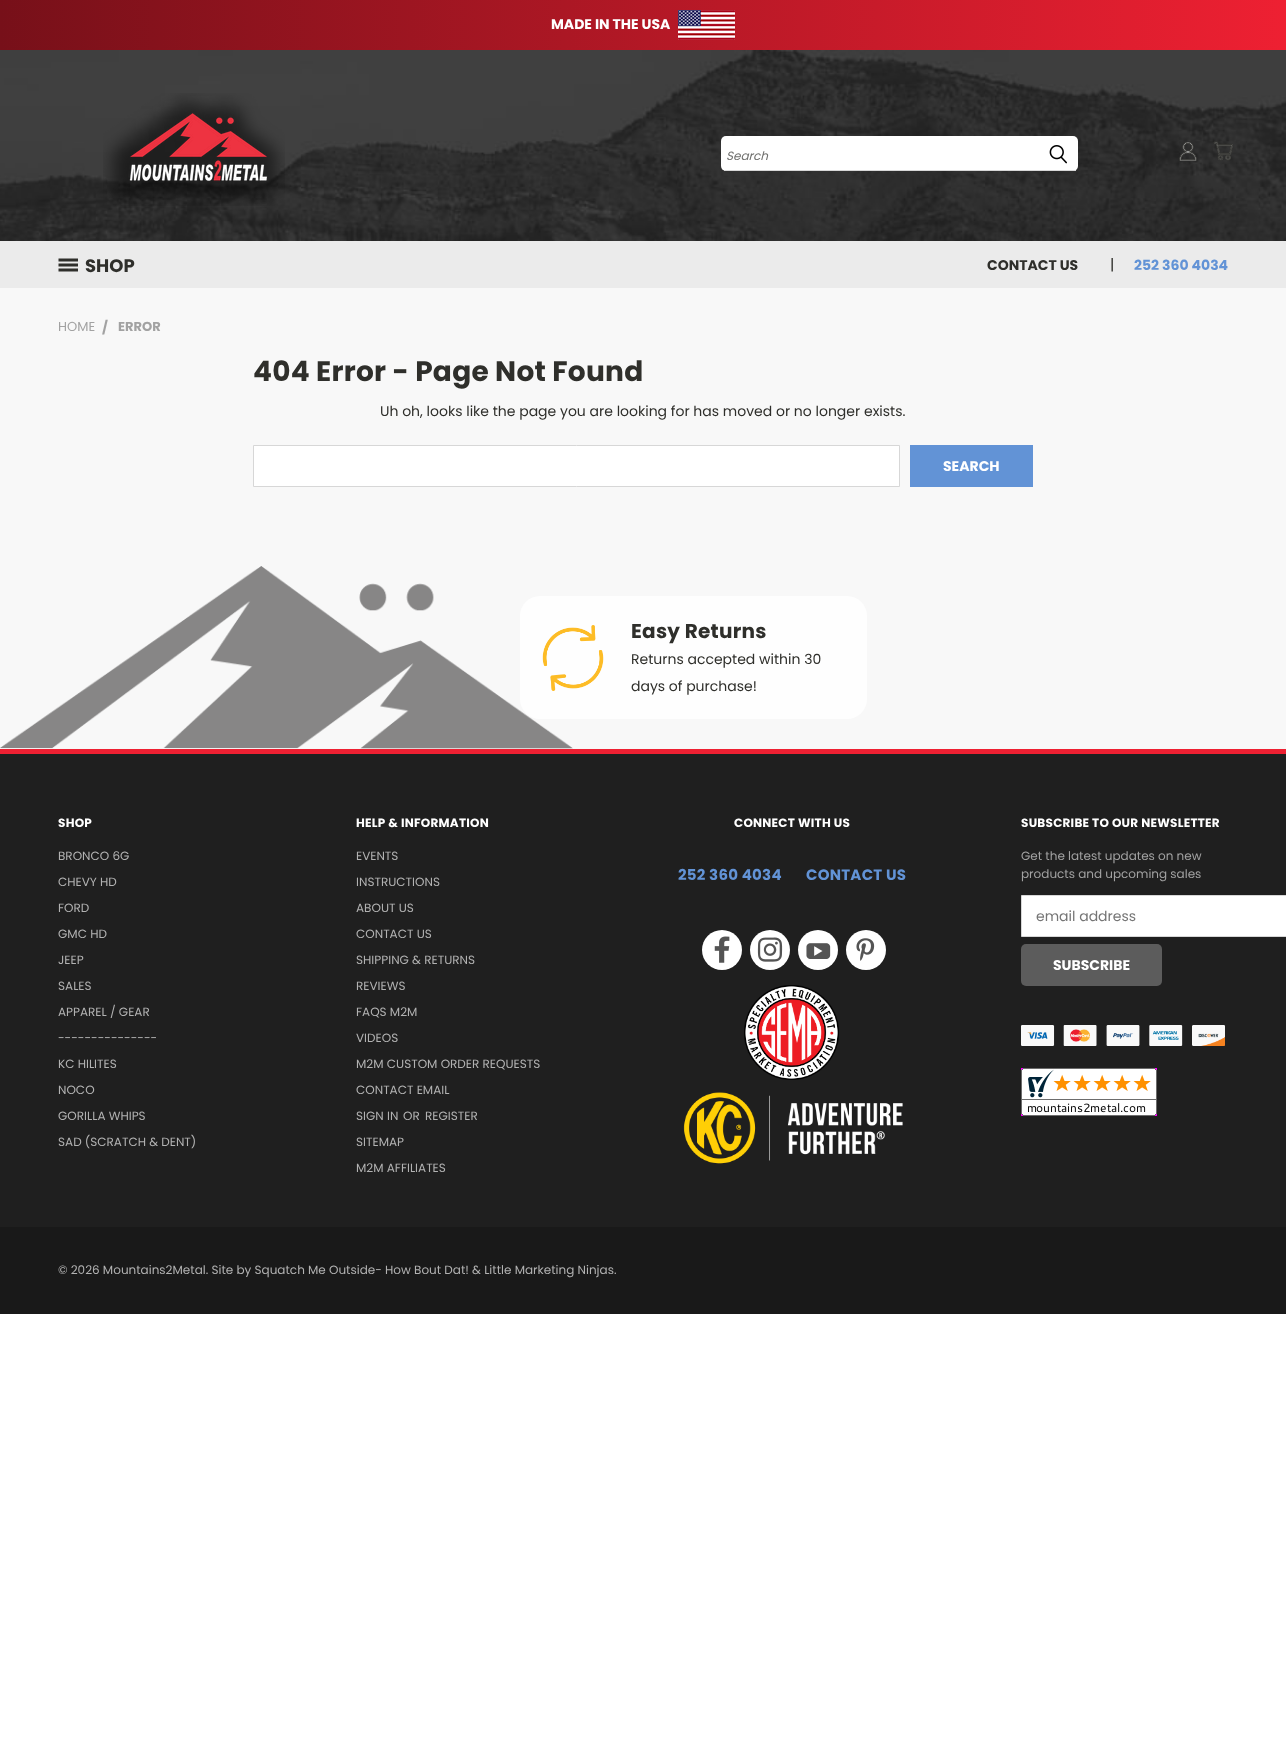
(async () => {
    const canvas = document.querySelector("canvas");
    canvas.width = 1286;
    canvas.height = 1748;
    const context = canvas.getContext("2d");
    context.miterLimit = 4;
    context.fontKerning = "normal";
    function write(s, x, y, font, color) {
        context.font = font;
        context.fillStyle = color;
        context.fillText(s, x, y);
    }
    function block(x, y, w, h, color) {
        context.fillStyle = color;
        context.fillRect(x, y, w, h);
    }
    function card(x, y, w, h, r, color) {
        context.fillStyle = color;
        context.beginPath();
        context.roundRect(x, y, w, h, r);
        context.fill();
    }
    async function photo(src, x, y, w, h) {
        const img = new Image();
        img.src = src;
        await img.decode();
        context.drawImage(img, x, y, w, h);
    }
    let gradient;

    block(0, 0, 1286, 1748, "rgb(255, 255, 255)");
    gradient = context.createLinearGradient(0, 25, 1286, 25);
    gradient.addColorStop(0, "rgb(119, 16, 25)");
    gradient.addColorStop(1, "rgb(238, 32, 50)");
    context.fillStyle = gradient;
    context.fillRect(0, 0, 1286, 50);
    write("MADE IN THE USA", 551, 29, "bold 14px Poppins", "rgb(255, 255, 255)");
    await photo("media/1.png", 678, 10, 57, 30);
    await photo("media/2.png", 0, 50, 1286, 191);
    await photo("media/3.png", 103, 93, 182, 113);
    card(721, 136, 357, 35, 5, "rgb(255, 255, 255)");
    block(724, 170, 352, 1, "rgb(215, 215, 215)");
    write("Search", 726, 160, "italic 12px Poppins", "rgb(112, 112, 110)");
    await photo("media/4.png", 1049, 145, 18, 19);
    await photo("media/5.png", 1179, 142, 18, 19);
    await photo("media/6.png", 1213, 141, 20, 20);
    block(0, 241, 1286, 47, "rgb(235, 235, 235)");
    await photo("media/7.png", 58, 258, 20, 14);
    write("SHOP", 85, 272, "bold 18px Poppins", "rgb(47, 47, 43)");
    write("CONTACT US", 987, 270, "bold 14px Poppins", "rgb(47, 47, 43)");
    write("|", 1110, 270, "15px Poppins", "rgb(47, 47, 43)");
    write("252 360 4034", 1134, 270, "bold 14px Poppins", "rgb(98, 147, 214)");
    block(0, 288, 1286, 461, "rgb(248, 248, 248)");
    write("HOME", 58, 331, "13px Poppins", "rgb(162, 162, 162)");
    write("/", 102, 332, "bold 13px Poppins", "rgb(162, 162, 162)");
    write("ERROR", 118, 331, "bold 13px Poppins", "rgb(162, 162, 162)");
    context.letterSpacing = "0.25px";
    write("404 Error - Page Not Found", 253, 381, "bold 28px Poppins", "rgb(47, 47, 43)");
    context.letterSpacing = "0px";
    write("Uh oh, looks like the page you are looking for has moved or no longer exists.", 380, 416, "14px Poppins", "rgb(47, 47, 43)");
    context.fillStyle = "rgb(255, 255, 255)";
    context.beginPath();
    context.rect(253.5, 445.5, 646, 41);
    context.fill();
    context.strokeStyle = "rgb(215, 215, 215)";
    context.stroke();
    block(910, 445, 123, 42, "rgb(98, 147, 214)");
    write("SEARCH", 943, 471, "bold 14px Poppins", "rgb(255, 255, 255)");
    await photo("media/8.png", 0, 566, 573, 183);
    card(520, 596, 347, 123, 20, "rgb(254, 254, 254)");
    await photo("media/9.png", 542, 625, 62, 66);
    context.letterSpacing = "0.25px";
    write("Easy Returns", 631, 638, "bold 20px Poppins", "rgb(47, 47, 43)");
    context.letterSpacing = "0px";
    write("Returns accepted within 30", 631, 664, "14px Poppins", "rgb(47, 47, 43)");
    write("days of purchase!", 631, 691, "14px Poppins", "rgb(47, 47, 43)");
    block(0, 754, 1286, 473, "rgb(31, 31, 31)");
    block(0, 749, 1286, 5, "rgb(238, 32, 50)");
    context.letterSpacing = "0.25px";
    write("SHOP", 58, 827, "bold 12px Poppins", "rgb(255, 255, 255)");
    context.letterSpacing = "0px";
    write("BRONCO 6G", 58, 860, "12px Poppins", "rgb(178, 178, 178)");
    write("CHEVY HD", 58, 886, "12px Poppins", "rgb(178, 178, 178)");
    write("FORD", 58, 912, "12px Poppins", "rgb(178, 178, 178)");
    write("GMC HD", 58, 938, "12px Poppins", "rgb(178, 178, 178)");
    write("JEEP", 58, 964, "12px Poppins", "rgb(178, 178, 178)");
    write("SALES", 58, 990, "12px Poppins", "rgb(178, 178, 178)");
    write("APPAREL / GEAR", 58, 1016, "12px Poppins", "rgb(178, 178, 178)");
    write("---------------", 58, 1042, "12px Poppins", "rgb(178, 178, 178)");
    write("KC HILITES", 58, 1068, "12px Poppins", "rgb(178, 178, 178)");
    write("NOCO", 58, 1094, "12px Poppins", "rgb(178, 178, 178)");
    write("GORILLA WHIPS", 58, 1120, "12px Poppins", "rgb(178, 178, 178)");
    write("SAD (SCRATCH & DENT)", 58, 1146, "12px Poppins", "rgb(178, 178, 178)");
    context.letterSpacing = "0.25px";
    write("HELP & INFORMATION", 356, 827, "bold 12px Poppins", "rgb(255, 255, 255)");
    context.letterSpacing = "0px";
    write("EVENTS", 356, 860, "12px Poppins", "rgb(178, 178, 178)");
    write("INSTRUCTIONS", 356, 886, "12px Poppins", "rgb(178, 178, 178)");
    write("ABOUT US", 356, 912, "12px Poppins", "rgb(178, 178, 178)");
    write("CONTACT US", 356, 938, "12px Poppins", "rgb(178, 178, 178)");
    write("SHIPPING & RETURNS", 356, 964, "12px Poppins", "rgb(178, 178, 178)");
    write("REVIEWS", 356, 990, "12px Poppins", "rgb(178, 178, 178)");
    write("FAQS M2M", 356, 1016, "12px Poppins", "rgb(178, 178, 178)");
    write("VIDEOS", 356, 1042, "12px Poppins", "rgb(178, 178, 178)");
    write("M2M CUSTOM ORDER REQUESTS", 356, 1068, "12px Poppins", "rgb(178, 178, 178)");
    write("CONTACT EMAIL", 356, 1094, "12px Poppins", "rgb(178, 178, 178)");
    write("SIGN IN", 356, 1120, "12px Poppins", "rgb(178, 178, 178)");
    write("OR", 403, 1120, "12px Poppins", "rgb(178, 178, 178)");
    write("REGISTER", 425, 1120, "12px Poppins", "rgb(178, 178, 178)");
    write("SITEMAP", 356, 1146, "12px Poppins", "rgb(178, 178, 178)");
    write("M2M AFFILIATES", 356, 1172, "12px Poppins", "rgb(178, 178, 178)");
    context.letterSpacing = "0.25px";
    write("CONNECT WITH US", 734, 827, "bold 12px Poppins", "rgb(255, 255, 255)");
    write("252 360 4034", 678, 880, "bold 15px Poppins", "rgb(98, 147, 214)");
    write("CONTACT US", 806, 880, "bold 15px Poppins", "rgb(98, 147, 214)");
    context.fillStyle = "rgb(255, 255, 255)";
    context.beginPath();
    context.arc(722, 950, 20, 0, Math.PI * 2);
    context.fill();
    await photo("media/10.png", 714, 936, 16, 27);
    context.beginPath();
    context.arc(770, 950, 20, 0, Math.PI * 2);
    context.fill();
    await photo("media/11.png", 757, 937, 26, 25);
    context.beginPath();
    context.arc(818, 950, 20, 0, Math.PI * 2);
    context.fill();
    await photo("media/12.png", 806, 943, 25, 16);
    context.beginPath();
    context.arc(866, 950, 20, 0, Math.PI * 2);
    context.fill();
    await photo("media/13.png", 856, 938, 19, 23);
    await photo("media/14.png", 744, 985, 95, 95);
    await photo("media/15.png", 683, 1092, 220, 72);
    write("SUBSCRIBE TO OUR NEWSLETTER", 1021, 827, "bold 12px Poppins", "rgb(255, 255, 255)");
    context.letterSpacing = "0px";
    write("Get the latest updates on new", 1021, 860, "12px Poppins", "rgb(162, 162, 162)");
    write("products and upcoming sales", 1021, 878, "12px Poppins", "rgb(162, 162, 162)");
    context.fillStyle = "rgb(255, 255, 255)";
    context.beginPath();
    context.rect(1021.5, 895.5, 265, 41);
    context.fill();
    context.stroke();
    write("email address", 1036, 921, "14px Poppins", "rgb(117, 117, 117)");
    card(1021, 944, 141, 42, 5, "rgb(92, 92, 92)");
    write("SUBSCRIBE", 1053, 970, "bold 14px Poppins", "rgb(255, 255, 255)");
    await photo("media/16.png", 1021, 1025, 204, 21);
    await photo("media/17.png", 1021, 1068, 136, 48);
    block(0, 1227, 1286, 87, "rgb(25, 25, 25)");
    write("© 2026 Mountains2Metal. Site by Squatch Me Outside- How Bout Dat! & Little Marketing Ninjas.", 58, 1274, "12px Poppins", "rgb(178, 178, 178)");
})();
